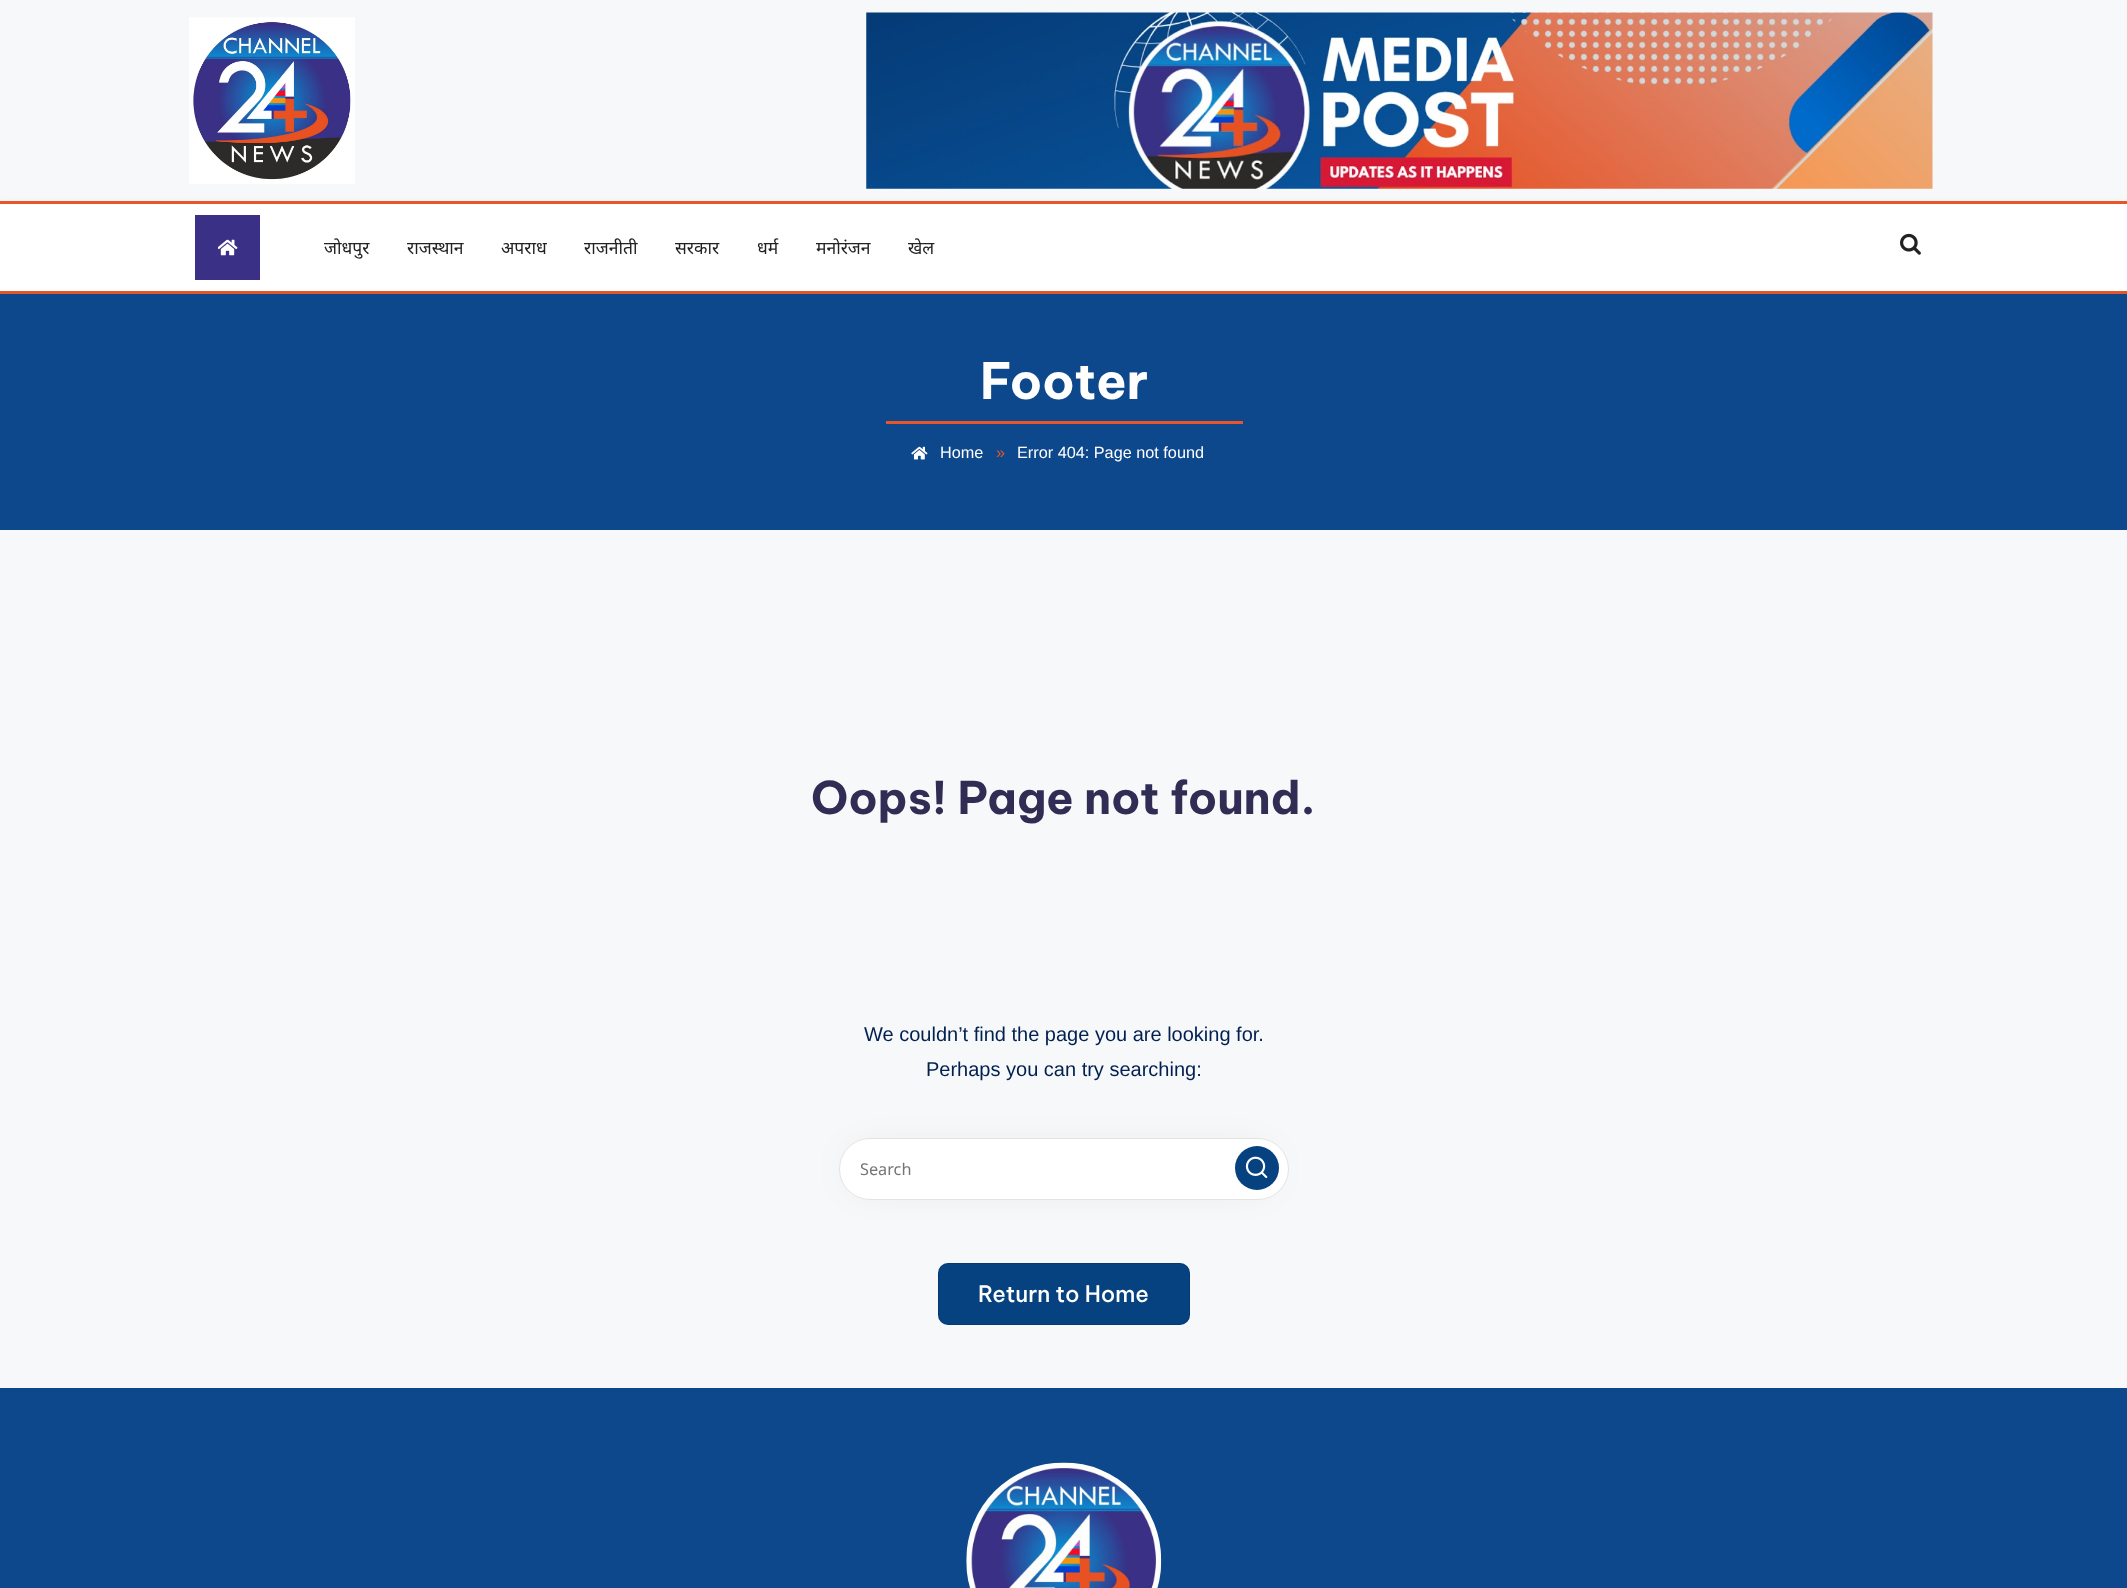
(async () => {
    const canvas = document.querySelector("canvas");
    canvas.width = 2127;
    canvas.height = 1588;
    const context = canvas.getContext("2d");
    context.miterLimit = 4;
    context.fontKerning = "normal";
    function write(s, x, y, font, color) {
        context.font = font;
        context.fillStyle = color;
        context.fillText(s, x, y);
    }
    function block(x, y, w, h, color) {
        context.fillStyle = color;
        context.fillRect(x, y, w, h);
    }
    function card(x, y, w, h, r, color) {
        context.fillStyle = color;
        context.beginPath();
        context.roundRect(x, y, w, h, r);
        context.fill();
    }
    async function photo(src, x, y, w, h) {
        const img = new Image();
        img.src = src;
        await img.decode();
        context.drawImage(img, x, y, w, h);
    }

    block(0, 0, 2127, 1588, "rgb(247, 248, 249)");
    await photo("media/1.png", 189, 17, 166, 167);
    await photo("media/2.png", 866, 12, 1067, 177);
    context.fillStyle = "rgba(152, 152, 152, 0.23)";
    context.filter = "blur(6px)";
    context.beginPath();
    context.rect(0, 208, 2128, 92);
    context.fill();
    context.filter = "none";
    block(0, 204, 2127, 87, "rgb(255, 255, 255)");
    block(0, 201, 2127, 3, "rgb(231, 85, 40)");
    block(0, 291, 2127, 3, "rgb(231, 85, 40)");
    block(195, 215, 65, 65, "rgb(58, 48, 134)");
    await photo("media/3.png", 218, 239, 20, 17);
    write("जोधपुर", 324, 254, "17.5px Noto Sans", "rgb(34, 34, 34)");
    write("राजस्थान", 407, 254, "17.5px Noto Sans", "rgb(34, 34, 34)");
    write("अपराध", 501, 254, "17.5px Noto Sans", "rgb(34, 34, 34)");
    write("राजनीती", 584, 254, "17.5px Noto Sans", "rgb(34, 34, 34)");
    write("सरकार", 675, 254, "17.5px Noto Sans", "rgb(34, 34, 34)");
    write("धर्म", 757, 254, "17.5px Noto Sans", "rgb(34, 34, 34)");
    write("मनोरंजन", 816, 254, "17.5px Noto Sans", "rgb(34, 34, 34)");
    write("खेल", 908, 254, "17.5px Noto Sans", "rgb(34, 34, 34)");
    await photo("media/4.png", 1900, 233, 21, 22);
    block(0, 294, 2127, 236, "rgb(13, 72, 140)");
    write("Footer", 980, 399, "bold 50px Be Vietnam Pro", "rgb(255, 255, 255)");
    block(886, 421, 357, 3, "rgb(231, 85, 40)");
    await photo("media/5.png", 911, 446, 17, 14);
    write("Home", 940, 458, "16.25px Liberation Sans", "rgb(255, 255, 255)");
    write("»", 996, 458, "16.25px Liberation Sans", "rgb(231, 85, 40)");
    write("Error 404: Page not found", 1017, 458, "16.25px Liberation Sans", "rgb(255, 255, 255)");
    write("Oops! Page not found.", 811, 814, "bold 45px Be Vietnam Pro", "rgb(48, 45, 85)");
    write("We couldn’t find the page you are looking for.", 864, 1041, "20px Liberation Sans", "rgb(0, 32, 80)");
    write("Perhaps you can try searching:", 926, 1076, "20px Liberation Sans", "rgb(0, 32, 80)");
    context.fillStyle = "rgba(0, 0, 0, 0.15)";
    context.filter = "blur(20px)";
    context.beginPath();
    context.roundRect(855, 1158, 410, 22, 11);
    context.fill();
    context.filter = "none";
    card(839, 1138, 450, 62, 31, "rgb(255, 255, 255)");
    context.beginPath();
    context.roundRect(839.5, 1138.5, 449, 61, 30.5);
    context.strokeStyle = "rgba(185, 185, 185, 0.4)";
    context.stroke();
    write("Search", 860, 1175, "16.25px Noto Sans", "rgb(117, 117, 117)");
    context.fillStyle = "rgb(6, 66, 128)";
    context.beginPath();
    context.arc(1257, 1168, 22, 0, Math.PI * 2);
    context.fill();
    await photo("media/6.png", 1245, 1156, 23, 23);
    card(938, 1263, 252, 62, 10, "rgb(6, 66, 128)");
    context.beginPath();
    context.roundRect(938.5, 1263.5, 251, 61, 9.5);
    context.strokeStyle = "rgba(0, 0, 0, 0.12)";
    context.stroke();
    write("Return to Home", 978, 1302, "500 22.5px Be Vietnam Pro", "rgb(255, 255, 255)");
    block(0, 1388, 2127, 200, "rgb(13, 72, 140)");
    await photo("media/7.png", 966, 1462, 196, 126);
})();
